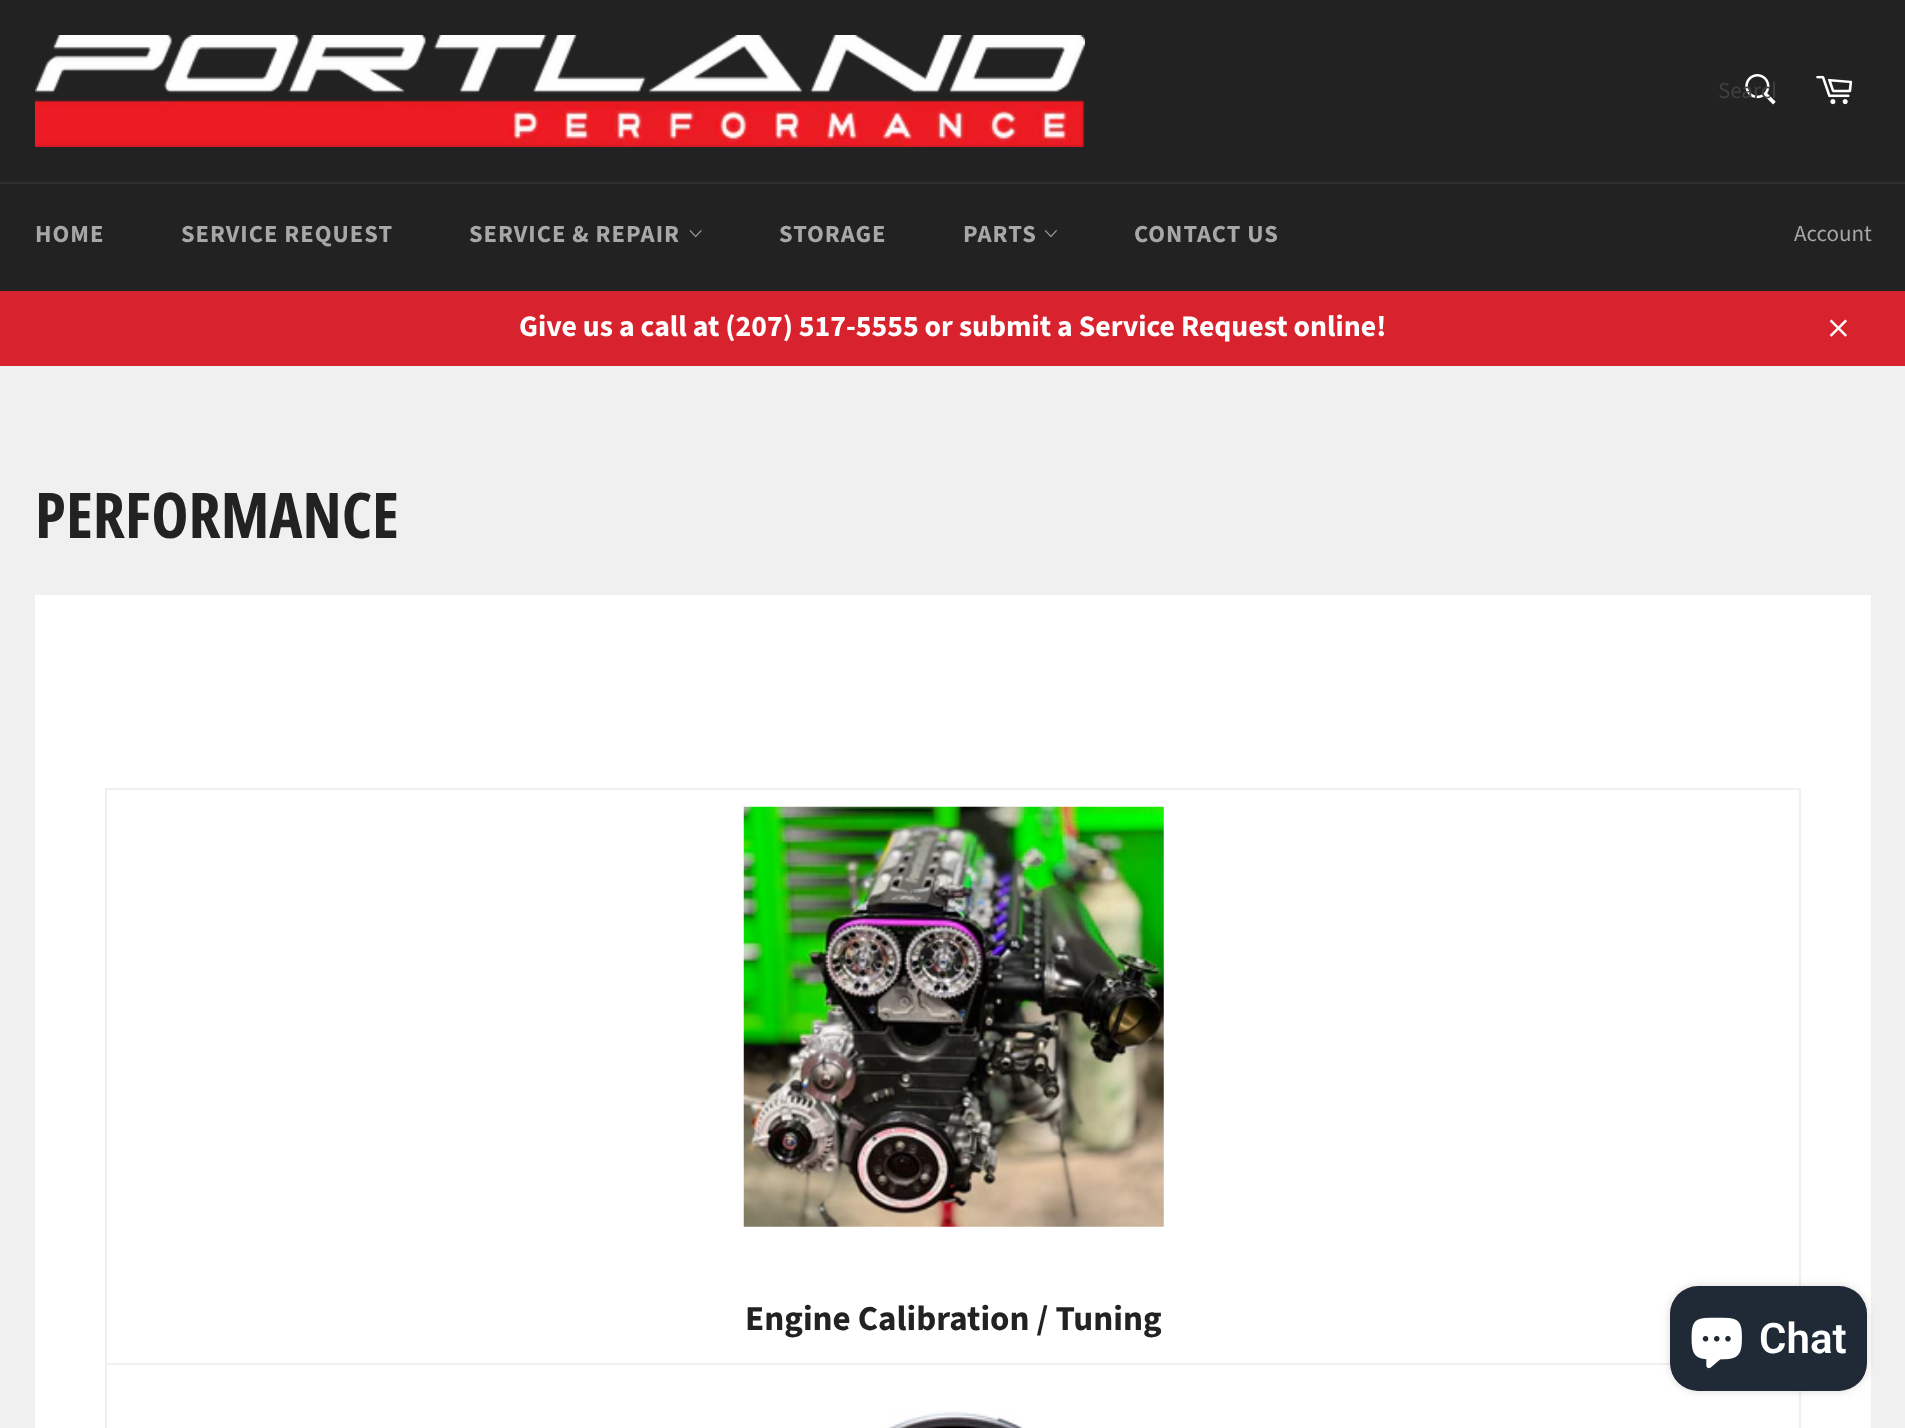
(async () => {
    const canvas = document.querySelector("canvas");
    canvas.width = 1905;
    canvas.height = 1428;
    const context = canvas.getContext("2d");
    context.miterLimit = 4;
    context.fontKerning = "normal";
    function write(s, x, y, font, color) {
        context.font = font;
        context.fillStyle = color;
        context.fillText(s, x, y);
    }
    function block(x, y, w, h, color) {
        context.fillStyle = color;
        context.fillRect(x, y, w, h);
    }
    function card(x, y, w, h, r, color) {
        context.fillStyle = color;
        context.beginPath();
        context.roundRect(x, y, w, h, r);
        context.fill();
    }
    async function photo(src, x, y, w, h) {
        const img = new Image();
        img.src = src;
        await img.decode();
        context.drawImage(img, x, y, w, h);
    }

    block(0, 0, 1905, 1428, "rgb(240, 240, 240)");
    block(0, 0, 1905, 291, "rgb(34, 34, 34)");
    await photo("media/1.png", 35, 35, 1050, 112);
    await photo("media/2.png", 1745, 74, 31, 31);
    context.save();
    context.beginPath();
    context.rect(1719, 75, 56, 32);
    context.clip();
    write("Search", 1718, 98, "23px Source Sans Pro", "rgb(64, 64, 64)");
    context.restore();
    await photo("media/3.png", 1816, 75, 37, 30);
    block(0, 182, 1905, 2, "rgb(47, 47, 47)");
    context.letterSpacing = "1px";
    write("HOME", 35, 242, "bold 24.5px Source Sans Pro", "rgb(167, 167, 167)");
    write("SERVICE REQUEST", 181, 242, "bold 24.5px Source Sans Pro", "rgb(167, 167, 167)");
    write("SERVICE & REPAIR", 469, 242, "bold 24.5px Source Sans Pro", "rgb(167, 167, 167)");
    await photo("media/4.png", 689, 230, 13, 8);
    write("STORAGE", 779, 242, "bold 24.5px Source Sans Pro", "rgb(167, 167, 167)");
    write("PARTS", 963, 242, "bold 24.5px Source Sans Pro", "rgb(167, 167, 167)");
    await photo("media/5.png", 1044, 230, 13, 8);
    write("CONTACT US", 1134, 242, "bold 24.5px Source Sans Pro", "rgb(167, 167, 167)");
    context.letterSpacing = "0px";
    write("Account", 1794, 241, "23px Source Sans Pro", "rgb(167, 167, 167)");
    block(0, 291, 1905, 75, "rgb(216, 35, 47)");
    write("Give us a call at (207) 517-5555 or submit a Service Request online!", 519, 336, "bold 29.75px Source Sans Pro", "rgb(255, 255, 255)");
    await photo("media/6.png", 1829, 319, 18, 18);
    write("PERFORMANCE", 35, 538, "bold 63px Open Sans Condensed", "rgb(34, 34, 34)");
    block(35, 595, 1836, 833, "rgb(255, 255, 255)");
    block(105, 788, 1696, 2, "rgb(240, 240, 240)");
    block(1799, 788, 2, 498, "rgb(240, 240, 240)");
    block(105, 1363, 1566, 2, "rgb(240, 240, 240)");
    block(105, 1363, 2, 65, "rgb(240, 240, 240)");
    block(105, 788, 2, 577, "rgb(240, 240, 240)");
    await photo("media/7.png", 743, 806, 421, 421);
    write("Engine Calibration / Tuning", 745, 1330, "bold 35px Source Sans Pro", "rgb(34, 34, 34)");
    block(1799, 1391, 2, 37, "rgb(240, 240, 240)");
    await photo("media/8.png", 879, 1411, 144, 17);
    context.fillStyle = "rgba(0, 0, 0, 0.15)";
    context.filter = "blur(4.5px)";
    context.beginPath();
    context.roundRect(1670, 1286, 197, 105, 28);
    context.fill();
    context.filter = "none";
    card(1670, 1286, 197, 105, 28, "rgb(32, 42, 54)");
    await photo("media/9.png", 1691, 1317, 51, 52);
    write("Chat", 1759, 1353, "600 42px Roboto", "rgb(255, 255, 255)");
})();
